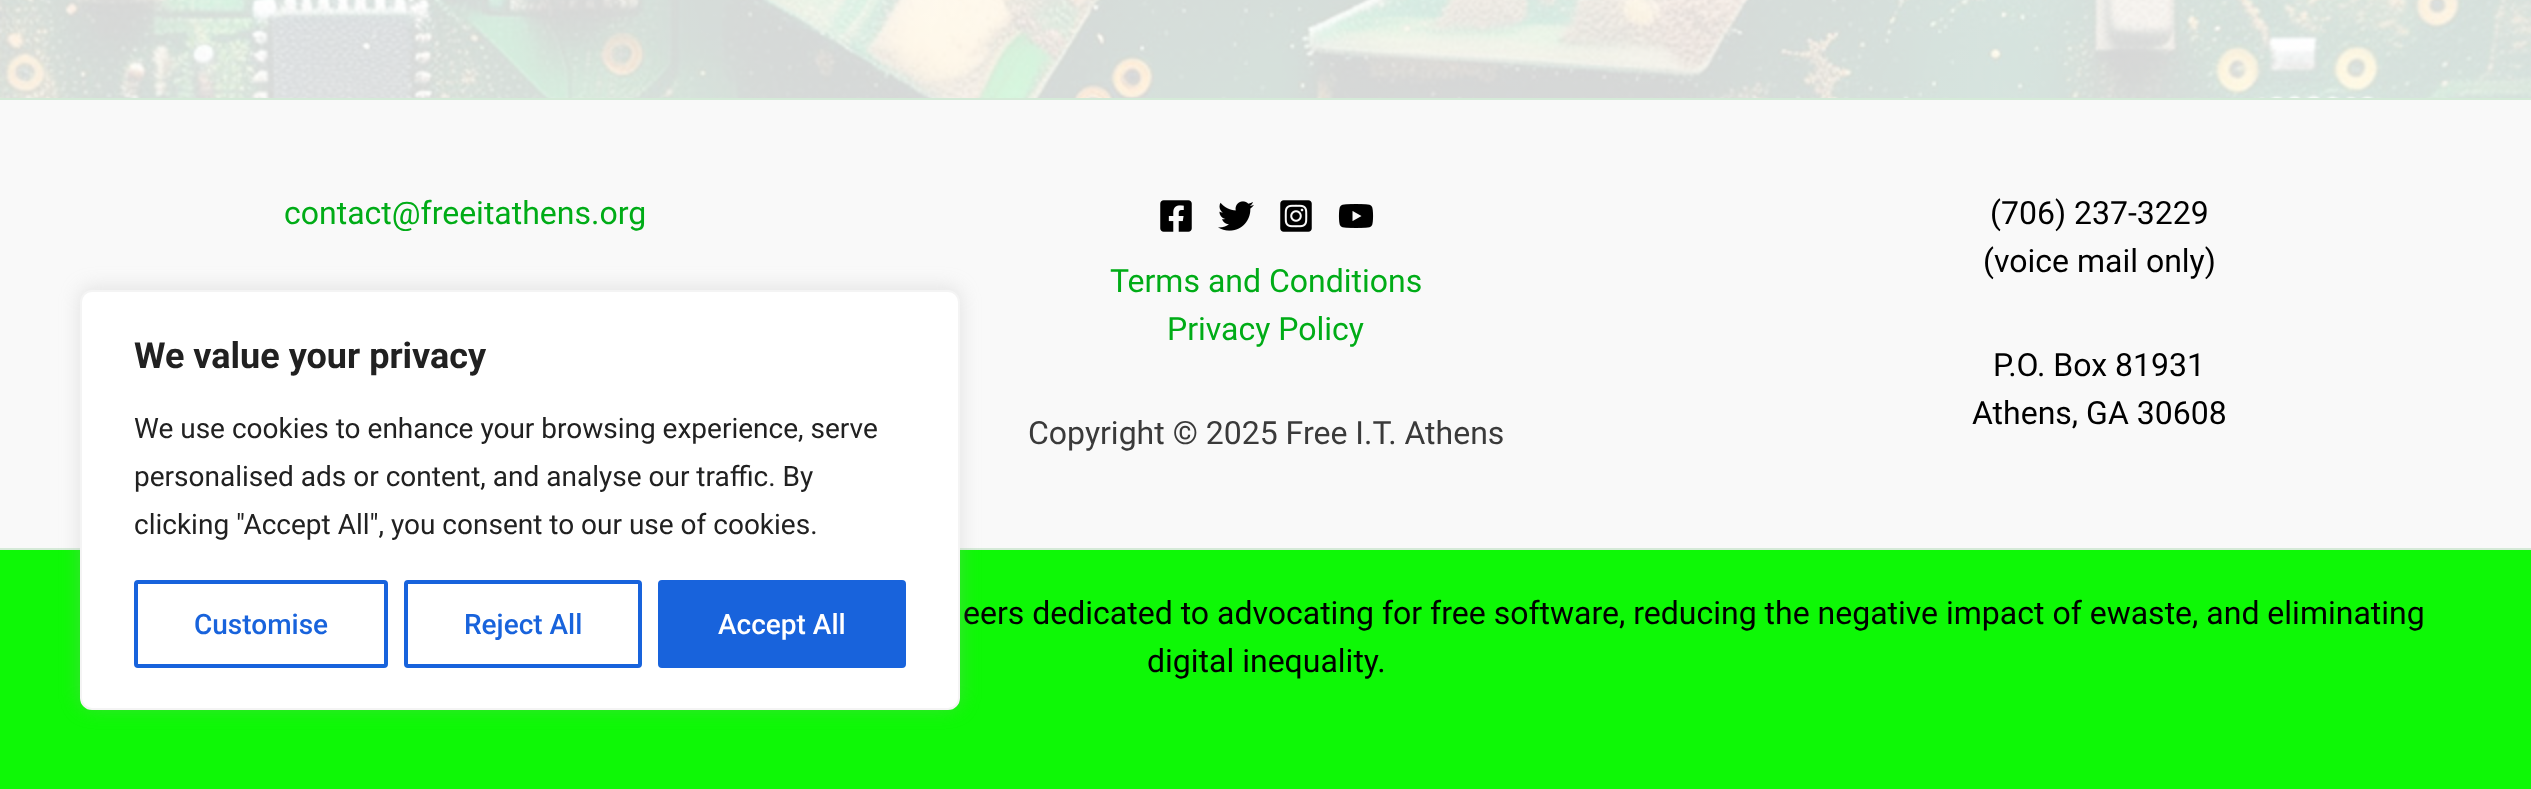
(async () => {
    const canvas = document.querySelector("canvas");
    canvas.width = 2531;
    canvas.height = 789;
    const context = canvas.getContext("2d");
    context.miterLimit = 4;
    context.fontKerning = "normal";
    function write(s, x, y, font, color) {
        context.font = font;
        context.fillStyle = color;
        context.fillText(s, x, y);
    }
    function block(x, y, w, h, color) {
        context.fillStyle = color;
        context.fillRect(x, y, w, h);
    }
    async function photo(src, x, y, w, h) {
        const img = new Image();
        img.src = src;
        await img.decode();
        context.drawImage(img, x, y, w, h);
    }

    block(0, 0, 2531, 789, "rgb(255, 255, 255)");
    await photo("media/1.png", 0, 0, 2531, 98);
    block(0, 100, 2531, 448, "rgb(249, 249, 249)");
    block(0, 98, 2531, 2, "rgb(213, 234, 216)");
    write("contact@freeitathens.org", 284, 224, "32px Roboto", "rgb(0, 172, 23)");
    write("(706) 237-3229", 1990, 224, "32px Roboto", "rgb(0, 0, 0)");
    write("(voice mail only)", 1983, 272, "32px Roboto", "rgb(0, 0, 0)");
    write("P.O. Box 81931", 1993, 376, "32px Roboto", "rgb(0, 0, 0)");
    write("Athens, GA 30608", 1972, 424, "32px Roboto", "rgb(0, 0, 0)");
    await photo("media/2.png", 1160, 200, 32, 32);
    await photo("media/3.png", 1218, 201, 36, 30);
    await photo("media/4.png", 1280, 200, 32, 32);
    await photo("media/5.png", 1338, 204, 36, 24);
    write("Terms and Conditions", 1110, 292, "32px Roboto", "rgb(0, 172, 23)");
    write("Privacy Policy", 1167, 340, "32px Roboto", "rgb(0, 172, 23)");
    write("Copyright © 2025 Free I.T. Athens", 1028, 444, "32px Roboto", "rgb(58, 58, 58)");
    block(0, 550, 2531, 239, "rgb(14, 248, 6)");
    block(0, 548, 2531, 2, "rgb(213, 234, 216)");
    write("eers dedicated to advocating for free software, reducing the negative impact of ewaste, and eliminating", 963, 624, "32px Roboto", "rgb(0, 0, 0)");
    write("digital inequality.", 1147, 672, "32px Roboto", "rgb(0, 0, 0)");
    context.fillStyle = "rgba(172, 171, 171, 0.3)";
    context.filter = "blur(10px)";
    context.beginPath();
    context.roundRect(80, 288, 880, 420, 12);
    context.fill();
    context.filter = "none";
    context.fillStyle = "rgb(255, 255, 255)";
    context.beginPath();
    context.roundRect(81, 291, 878, 418, 11);
    context.fill();
    context.strokeStyle = "rgb(244, 244, 244)";
    context.lineWidth = 2;
    context.stroke();
    write("We value your privacy", 134, 368, "bold 36px Roboto", "rgb(33, 33, 33)");
    write("We use cookies to enhance your browsing experience, serve", 134, 438, "28px Roboto", "rgb(33, 33, 33)");
    write("personalised ads or content, and analyse our traffic. By", 134, 486, "28px Roboto", "rgb(33, 33, 33)");
    write("clicking \"Accept All\", you consent to our use of cookies.", 134, 534, "28px Roboto", "rgb(33, 33, 33)");
    context.beginPath();
    context.roundRect(136, 582, 250, 84, 2);
    context.strokeStyle = "rgb(24, 99, 220)";
    context.lineWidth = 4;
    context.stroke();
    write("Customise", 194, 634, "500 28px Roboto", "rgb(24, 99, 220)");
    context.beginPath();
    context.roundRect(406, 582, 234, 84, 2);
    context.stroke();
    write("Reject All", 464, 634, "500 28px Roboto", "rgb(24, 99, 220)");
    context.beginPath();
    context.roundRect(660, 582, 244, 84, 2);
    context.fill();
    context.stroke();
    write("Accept All", 718, 634, "500 28px Roboto", "rgb(255, 255, 255)");
})();
